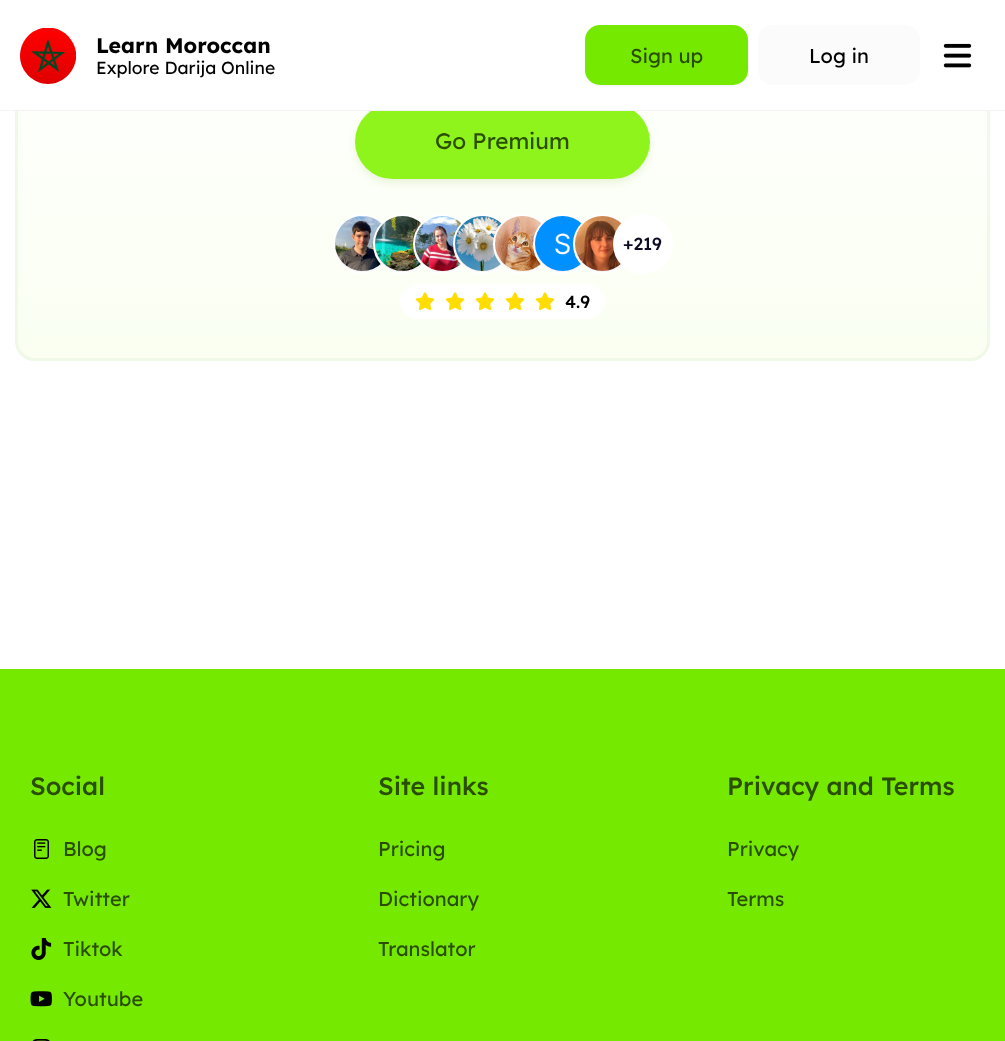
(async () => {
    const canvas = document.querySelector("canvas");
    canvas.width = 1005;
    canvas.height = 1041;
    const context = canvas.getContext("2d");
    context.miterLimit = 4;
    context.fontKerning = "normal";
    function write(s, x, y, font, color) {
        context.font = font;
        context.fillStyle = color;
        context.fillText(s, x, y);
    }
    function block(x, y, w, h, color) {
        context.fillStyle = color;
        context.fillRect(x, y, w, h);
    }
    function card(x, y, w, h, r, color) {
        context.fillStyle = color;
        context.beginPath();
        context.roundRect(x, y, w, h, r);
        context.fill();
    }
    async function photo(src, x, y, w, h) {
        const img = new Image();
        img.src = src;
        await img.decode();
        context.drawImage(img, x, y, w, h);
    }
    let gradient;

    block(0, 0, 1005, 1041, "rgb(255, 255, 255)");
    context.save();
    context.beginPath();
    context.roundRect(15, -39, 975, 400, 20);
    context.clip();
    gradient = context.createLinearGradient(503, 359, 503, -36);
    gradient.addColorStop(0, "rgb(250, 255, 242)");
    gradient.addColorStop(1, "rgb(255, 255, 255)");
    context.fillStyle = gradient;
    context.fillRect(15, 111, 975, 248);
    context.restore();
    context.beginPath();
    context.roundRect(16.5, -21.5, 972, 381, 18.5);
    context.strokeStyle = "rgb(240, 248, 231)";
    context.lineWidth = 3;
    context.stroke();
    context.fillStyle = "rgb(234, 244, 220)";
    context.filter = "blur(2.5px)";
    context.beginPath();
    context.roundRect(358, 109, 290, 70, 35);
    context.fill();
    context.filter = "none";
    context.filter = "blur(4px)";
    context.beginPath();
    context.roundRect(356, 110, 293, 73, 36.5);
    context.fill();
    context.filter = "none";
    card(355, 104, 295, 75, 37.5, "rgb(143, 244, 27)");
    block(15, 0, 975, 110, "rgb(255, 255, 255)");
    block(0, 110, 1005, 1, "rgb(243, 243, 244)");
    gradient = context.createLinearGradient(20, 28, 20, 84);
    gradient.addColorStop(0, "rgb(255, 0, 0)");
    gradient.addColorStop(1, "rgb(224, 0, 0)");
    context.fillStyle = gradient;
    context.beginPath();
    context.moveTo(76, 59);
    context.bezierCurveTo(74, 73, 62, 84, 48, 84);
    context.bezierCurveTo(33, 84, 20, 71, 20, 56);
    context.bezierCurveTo(20, 42, 30, 30, 43, 28);
    context.lineTo(53, 28);
    context.bezierCurveTo(65, 30, 74, 40, 76, 52);
    context.closePath();
    context.fill();
    context.beginPath();
    context.moveTo(40, 69.5);
    context.lineTo(48, 42.5);
    context.lineTo(57, 69);
    context.lineTo(34.5, 52.5);
    context.lineTo(62, 53);
    context.closePath();
    context.strokeStyle = "rgb(0, 71, 36)";
    context.lineWidth = 2.2;
    context.lineCap = "round";
    context.stroke();
    write("Learn Moroccan", 96, 53, "bold 21.25px Lexend", "rgb(0, 0, 0)");
    write("Explore Darija Online", 96, 74, "17.5px Lexend", "rgb(0, 0, 0)");
    context.fillStyle = "rgba(0, 0, 0, 0.05)";
    context.filter = "blur(1px)";
    context.beginPath();
    context.roundRect(585, 26, 163, 60, 15);
    context.fill();
    context.filter = "none";
    card(585, 25, 163, 60, 15, "rgb(117, 233, 0)");
    write("Sign up", 630, 63, "20px Lexend", "rgb(42, 77, 0)");
    card(758, 25, 162, 60, 15, "rgb(251, 251, 251)");
    write("Log in", 809, 63, "20px Lexend", "rgb(0, 0, 0)");
    await photo("media/1.png", 943, 43, 29, 25);
    write("Go Premium", 435, 149, "22.5px Lexend", "rgb(42, 77, 0)");
    context.fillStyle = "rgb(255, 255, 255)";
    context.beginPath();
    context.arc(363, 244, 30, 0, Math.PI * 2);
    context.fill();
    await photo("media/2.png", 335, 216, 47, 56);
    context.beginPath();
    context.arc(403, 244, 28.5, 0, Math.PI * 2);
    context.fill();
    context.strokeStyle = "rgb(255, 255, 255)";
    context.lineWidth = 3;
    context.stroke();
    await photo("media/3.png", 375, 216, 47, 56);
    context.beginPath();
    context.arc(443, 244, 28.5, 0, Math.PI * 2);
    context.fill();
    context.stroke();
    await photo("media/4.png", 415, 216, 47, 56);
    context.beginPath();
    context.arc(483, 244, 28.5, 0, Math.PI * 2);
    context.fill();
    context.stroke();
    await photo("media/5.png", 455, 216, 47, 56);
    context.beginPath();
    context.arc(523, 244, 28.5, 0, Math.PI * 2);
    context.fill();
    context.stroke();
    await photo("media/6.png", 495, 216, 47, 56);
    context.beginPath();
    context.arc(563, 244, 28.5, 0, Math.PI * 2);
    context.fill();
    context.stroke();
    await photo("media/7.png", 535, 216, 47, 56);
    context.beginPath();
    context.arc(603, 244, 28.5, 0, Math.PI * 2);
    context.fill();
    context.stroke();
    await photo("media/8.png", 575, 216, 47, 56);
    context.beginPath();
    context.arc(643, 244, 28.5, 0, Math.PI * 2);
    context.fill();
    context.stroke();
    write("+219", 623, 250, "500 17.5px Lexend", "rgb(13, 12, 34)");
    card(400, 284, 205, 35, 17.5, "rgb(255, 255, 255)");
    await photo("media/9.png", 415, 292, 20, 19);
    await photo("media/9.png", 445, 292, 20, 19);
    await photo("media/9.png", 475, 292, 20, 19);
    await photo("media/9.png", 505, 292, 20, 19);
    await photo("media/9.png", 535, 292, 20, 19);
    write("4.9", 565, 308, "500 17.5px Lexend", "rgb(0, 0, 0)");
    block(0, 669, 1005, 372, "rgb(117, 233, 0)");
    write("Social", 30, 795, "500 25px Lexend", "rgb(42, 77, 0)");
    await photo("media/10.png", 34, 839, 15, 20);
    write("Blog", 63, 856, "20px Lexend", "rgb(42, 77, 0)");
    await photo("media/11.png", 31, 889, 21, 19);
    write("Twitter", 63, 906, "20px Lexend", "rgb(42, 77, 0)");
    await photo("media/12.png", 31, 938, 21, 22);
    write("Tiktok", 63, 956, "20px Lexend", "rgb(42, 77, 0)");
    await photo("media/13.png", 30, 991, 22, 16);
    write("Youtube", 63, 1006, "20px Lexend", "rgb(42, 77, 0)");
    await photo("media/14.png", 32, 1039, 18, 2);
    write("Site links", 378, 795, "500 25px Lexend", "rgb(42, 77, 0)");
    write("Pricing", 378, 856, "20px Lexend", "rgb(42, 77, 0)");
    write("Dictionary", 378, 906, "20px Lexend", "rgb(42, 77, 0)");
    write("Translator", 378, 956, "20px Lexend", "rgb(42, 77, 0)");
    write("Privacy and Terms", 727, 795, "500 25px Lexend", "rgb(42, 77, 0)");
    write("Privacy", 727, 856, "20px Lexend", "rgb(42, 77, 0)");
    write("Terms", 727, 906, "20px Lexend", "rgb(42, 77, 0)");
})();
